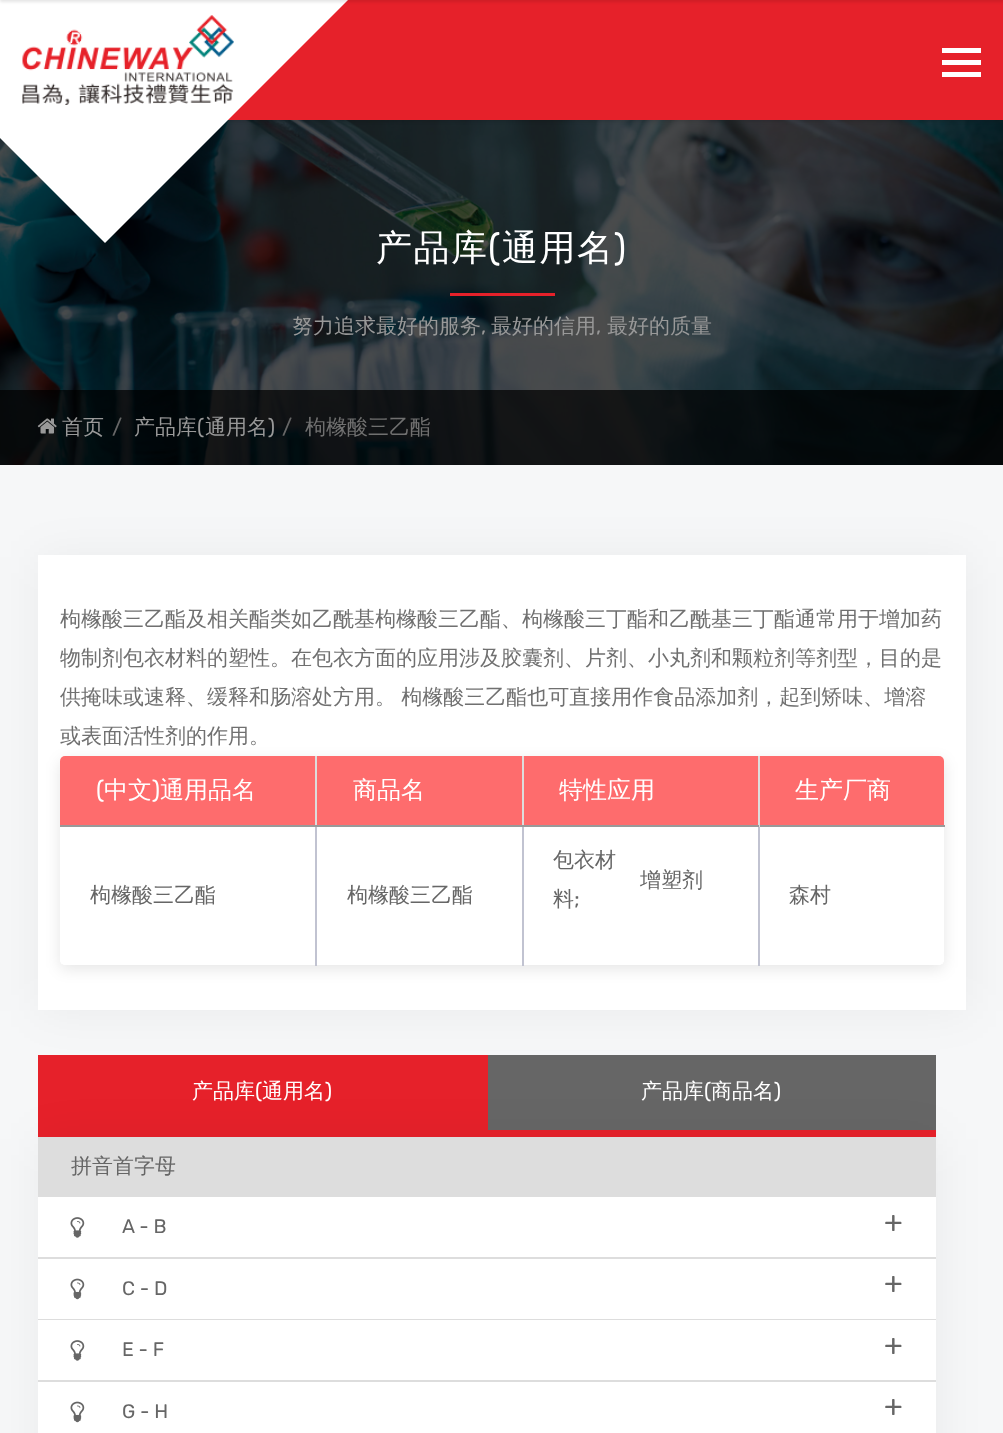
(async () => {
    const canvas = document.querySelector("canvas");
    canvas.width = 1003;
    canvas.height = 1433;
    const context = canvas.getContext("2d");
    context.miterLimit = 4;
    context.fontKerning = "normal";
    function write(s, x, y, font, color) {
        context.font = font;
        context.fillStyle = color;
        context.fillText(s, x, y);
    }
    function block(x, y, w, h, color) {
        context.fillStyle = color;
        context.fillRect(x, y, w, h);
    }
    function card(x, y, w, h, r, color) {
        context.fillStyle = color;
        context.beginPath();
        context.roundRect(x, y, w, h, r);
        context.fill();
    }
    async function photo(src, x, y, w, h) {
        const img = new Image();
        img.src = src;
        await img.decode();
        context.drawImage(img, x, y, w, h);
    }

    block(0, 0, 1003, 1433, "rgb(246, 247, 248)");
    await photo("media/2.png", 0, 120, 1003, 345);
    context.fillStyle = "rgba(0, 0, 0, 0.1)";
    context.filter = "blur(1.5px)";
    context.beginPath();
    context.rect(0, 2, 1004, 120);
    context.fill();
    context.filter = "none";
    block(228, 0, 775, 120, "rgb(230, 33, 42)");
    context.fillStyle = "rgb(255, 255, 255)";
    context.beginPath();
    context.moveTo(-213, -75);
    context.lineTo(105, -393);
    context.lineTo(423, -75);
    context.lineTo(105, 243);
    context.closePath();
    context.fill();
    context.fillStyle = "rgba(0, 0, 0, 0.1)";
    context.filter = "blur(1.5px)";
    context.beginPath();
    context.rect(0, -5, 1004, 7);
    context.fill();
    context.filter = "none";
    await photo("media/1.png", 22, 15, 212, 90);
    block(942, 60, 39, 5, "rgb(255, 255, 255)");
    block(942, 48, 39, 5, "rgb(255, 255, 255)");
    block(942, 72, 39, 5, "rgb(255, 255, 255)");
    context.letterSpacing = "1.5px";
    write("产品库", 376, 260, "500 36px WenQuanYi Zen Hei", "rgb(255, 255, 255)");
    write("(", 488, 260, "36px Rubik", "rgb(255, 255, 255)");
    write("通用名", 502, 260, "500 36px WenQuanYi Zen Hei", "rgb(255, 255, 255)");
    write(")", 614, 260, "36px Rubik", "rgb(255, 255, 255)");
    block(450, 293, 105, 3, "rgb(230, 33, 42)");
    context.letterSpacing = "0px";
    write("努力追求最好的服务", 292, 333, "500 21px WenQuanYi Zen Hei", "rgb(153, 153, 153)");
    write(",", 481, 333, "21px Rubik", "rgb(153, 153, 153)");
    write("最好的信用", 491, 333, "500 21px WenQuanYi Zen Hei", "rgb(153, 153, 153)");
    write(",", 596, 333, "21px Rubik", "rgb(153, 153, 153)");
    write("最好的质量", 607, 333, "500 21px WenQuanYi Zen Hei", "rgb(153, 153, 153)");
    block(0, 390, 1003, 75, "rgba(0, 0, 0, 0.7)");
    await photo("media/3.png", 37, 418, 20, 16);
    write("首页", 62, 434, "500 21px WenQuanYi Zen Hei", "rgb(153, 153, 153)");
    write("/", 112, 434, "21px Rubik", "rgb(102, 102, 102)");
    write("产品库", 134, 434, "500 21px WenQuanYi Zen Hei", "rgb(153, 153, 153)");
    write("(", 197, 434, "21px Rubik", "rgb(153, 153, 153)");
    write("通用名", 205, 434, "500 21px WenQuanYi Zen Hei", "rgb(153, 153, 153)");
    write(")", 268, 434, "21px Rubik", "rgb(153, 153, 153)");
    write("/", 282, 434, "21px Rubik", "rgb(102, 102, 102)");
    write("枸橼酸三乙酯", 305, 434, "500 21px WenQuanYi Zen Hei", "rgb(112, 112, 112)");
    context.fillStyle = "rgba(0, 0, 0, 0.05)";
    context.filter = "blur(24px)";
    context.beginPath();
    context.rect(39, 557, 929, 454);
    context.fill();
    context.filter = "none";
    block(38, 555, 928, 455, "rgb(255, 255, 255)");
    write("枸橼酸三乙酯及相关酯类如乙酰基枸橼酸三乙酯、枸橼酸三丁酯和乙酰基三丁酯通常用于增加药", 60, 626, "500 21px WenQuanYi Zen Hei", "rgb(112, 112, 112)");
    write("物制剂包衣材料的塑性。在包衣方面的应用涉及胶囊剂、片剂、小丸剂和颗粒剂等剂型，目的是", 60, 665, "500 21px WenQuanYi Zen Hei", "rgb(112, 112, 112)");
    context.wordSpacing = "-1px";
    write("供掩味或速释、缓释和肠溶处方用。 枸橼酸三乙酯也可直接用作食品添加剂，起到矫味、增溶", 60, 704, "500 21px WenQuanYi Zen Hei", "rgb(112, 112, 112)");
    context.fillStyle = "rgba(0, 0, 0, 0.1)";
    context.filter = "blur(7.5px)";
    context.beginPath();
    context.roundRect(60, 761, 884, 208, 5);
    context.fill();
    context.filter = "none";
    context.wordSpacing = "0px";
    write("或表面活性剂的作用。", 60, 743, "500 21px WenQuanYi Zen Hei", "rgb(112, 112, 112)");
    card(60, 756, 884, 209, 5, "rgb(255, 255, 255)");
    context.fillStyle = "rgb(254, 108, 109)";
    context.beginPath();
    context.roundRect(60, 756, 257, 71, [5, 0, 0, 0]);
    context.fill();
    context.beginPath();
    context.roundRect(758, 756, 186, 71, [0, 5, 0, 0]);
    context.fill();
    context.fillStyle = "rgb(255, 255, 255)";
    context.beginPath();
    context.roundRect(758, 827, 186, 138, [0, 0, 5, 0]);
    context.fill();
    block(758, 825, 2, 141, "rgb(193, 195, 209)");
    block(758, 825, 187, 2, "rgb(153, 153, 153)");
    block(758, 756, 2, 71, "rgb(221, 221, 221)");
    block(522, 825, 2, 141, "rgb(193, 195, 209)");
    block(522, 825, 237, 2, "rgb(153, 153, 153)");
    block(522, 756, 2, 71, "rgb(221, 221, 221)");
    context.fillStyle = "rgb(255, 255, 255)";
    context.beginPath();
    context.roundRect(60, 827, 257, 138, [0, 0, 0, 5]);
    context.fill();
    block(315, 825, 2, 141, "rgb(193, 195, 209)");
    block(315, 825, 209, 2, "rgb(153, 153, 153)");
    block(315, 756, 2, 71, "rgb(221, 221, 221)");
    block(60, 825, 257, 2, "rgb(153, 153, 153)");
    write("(", 96, 798, "24px Rubik", "rgb(255, 255, 255)");
    write("中文", 104, 798, "500 24px WenQuanYi Zen Hei", "rgb(255, 255, 255)");
    write(")", 152, 798, "24px Rubik", "rgb(255, 255, 255)");
    write("通用品名", 160, 798, "500 24px WenQuanYi Zen Hei", "rgb(255, 255, 255)");
    block(317, 756, 205, 69, "rgb(254, 108, 109)");
    write("商品名", 353, 798, "500 24px WenQuanYi Zen Hei", "rgb(255, 255, 255)");
    block(524, 756, 234, 69, "rgb(254, 108, 109)");
    write("特性应用", 559, 798, "500 24px WenQuanYi Zen Hei", "rgb(255, 255, 255)");
    write("生产厂商", 795, 798, "500 24px WenQuanYi Zen Hei", "rgb(255, 255, 255)");
    write("枸橼酸三乙酯", 90, 902, "500 21px WenQuanYi Zen Hei", "rgb(102, 102, 102)");
    write("枸橼酸三乙酯", 347, 902, "500 21px WenQuanYi Zen Hei", "rgb(102, 102, 102)");
    write("包衣材", 553, 867, "500 21px WenQuanYi Zen Hei", "rgb(102, 102, 102)");
    write("料", 553, 906, "500 21px WenQuanYi Zen Hei", "rgb(102, 102, 102)");
    write(";", 574, 906, "21px Rubik", "rgb(102, 102, 102)");
    write("增塑剂", 640, 887, "500 21px WenQuanYi Zen Hei", "rgb(102, 102, 102)");
    write("森村", 789, 902, "500 21px WenQuanYi Zen Hei", "rgb(102, 102, 102)");
    block(38, 1130, 898, 7, "rgb(230, 33, 42)");
    block(38, 1055, 450, 75, "rgb(230, 33, 42)");
    write("产品库", 192, 1098, "500 21px WenQuanYi Zen Hei", "rgb(255, 255, 255)");
    write("(", 255, 1098, "21px Rubik", "rgb(255, 255, 255)");
    write("通用名", 262, 1098, "500 21px WenQuanYi Zen Hei", "rgb(255, 255, 255)");
    write(")", 325, 1098, "21px Rubik", "rgb(255, 255, 255)");
    block(488, 1055, 448, 75, "rgb(102, 102, 102)");
    write("产品库", 641, 1098, "500 21px WenQuanYi Zen Hei", "rgb(255, 255, 255)");
    write("(", 704, 1098, "21px Rubik", "rgb(255, 255, 255)");
    write("商品名", 711, 1098, "500 21px WenQuanYi Zen Hei", "rgb(255, 255, 255)");
    write(")", 774, 1098, "21px Rubik", "rgb(255, 255, 255)");
    context.fillStyle = "rgba(0, 0, 0, 0.05)";
    context.filter = "blur(24px)";
    context.beginPath();
    context.rect(39, 1139, 899, 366);
    context.fill();
    context.filter = "none";
    block(38, 1137, 898, 60, "rgb(221, 221, 221)");
    write("拼音首字母", 71, 1173, "500 21px WenQuanYi Zen Hei", "rgb(102, 102, 102)");
    block(38, 1197, 898, 60, "rgb(255, 255, 255)");
    block(38, 1257, 898, 2, "rgb(221, 221, 221)");
    await photo("media/4.png", 70, 1217, 15, 21);
    write("A - B", 122, 1233, "19.5px Rubik", "rgb(102, 102, 102)");
    write("+", 884, 1232, "30px Rubik", "rgb(102, 102, 102)");
    block(38, 1259, 898, 60, "rgb(255, 255, 255)");
    block(38, 1319, 898, 1, "rgb(221, 221, 221)");
    await photo("media/5.png", 70, 1278, 15, 22);
    write("C - D", 122, 1295, "19.5px Rubik", "rgb(102, 102, 102)");
    write("+", 884, 1293, "30px Rubik", "rgb(102, 102, 102)");
    block(38, 1320, 898, 60, "rgb(255, 255, 255)");
    block(38, 1380, 898, 2, "rgb(221, 221, 221)");
    await photo("media/4.png", 70, 1340, 15, 21);
    write("E - F", 122, 1356, "19.5px Rubik", "rgb(102, 102, 102)");
    write("+", 884, 1355, "30px Rubik", "rgb(102, 102, 102)");
    block(38, 1382, 898, 51, "rgb(255, 255, 255)");
    await photo("media/5.png", 70, 1401, 15, 22);
    write("G - H", 122, 1418, "19.5px Rubik", "rgb(102, 102, 102)");
    write("+", 884, 1416, "30px Rubik", "rgb(102, 102, 102)");
})();
